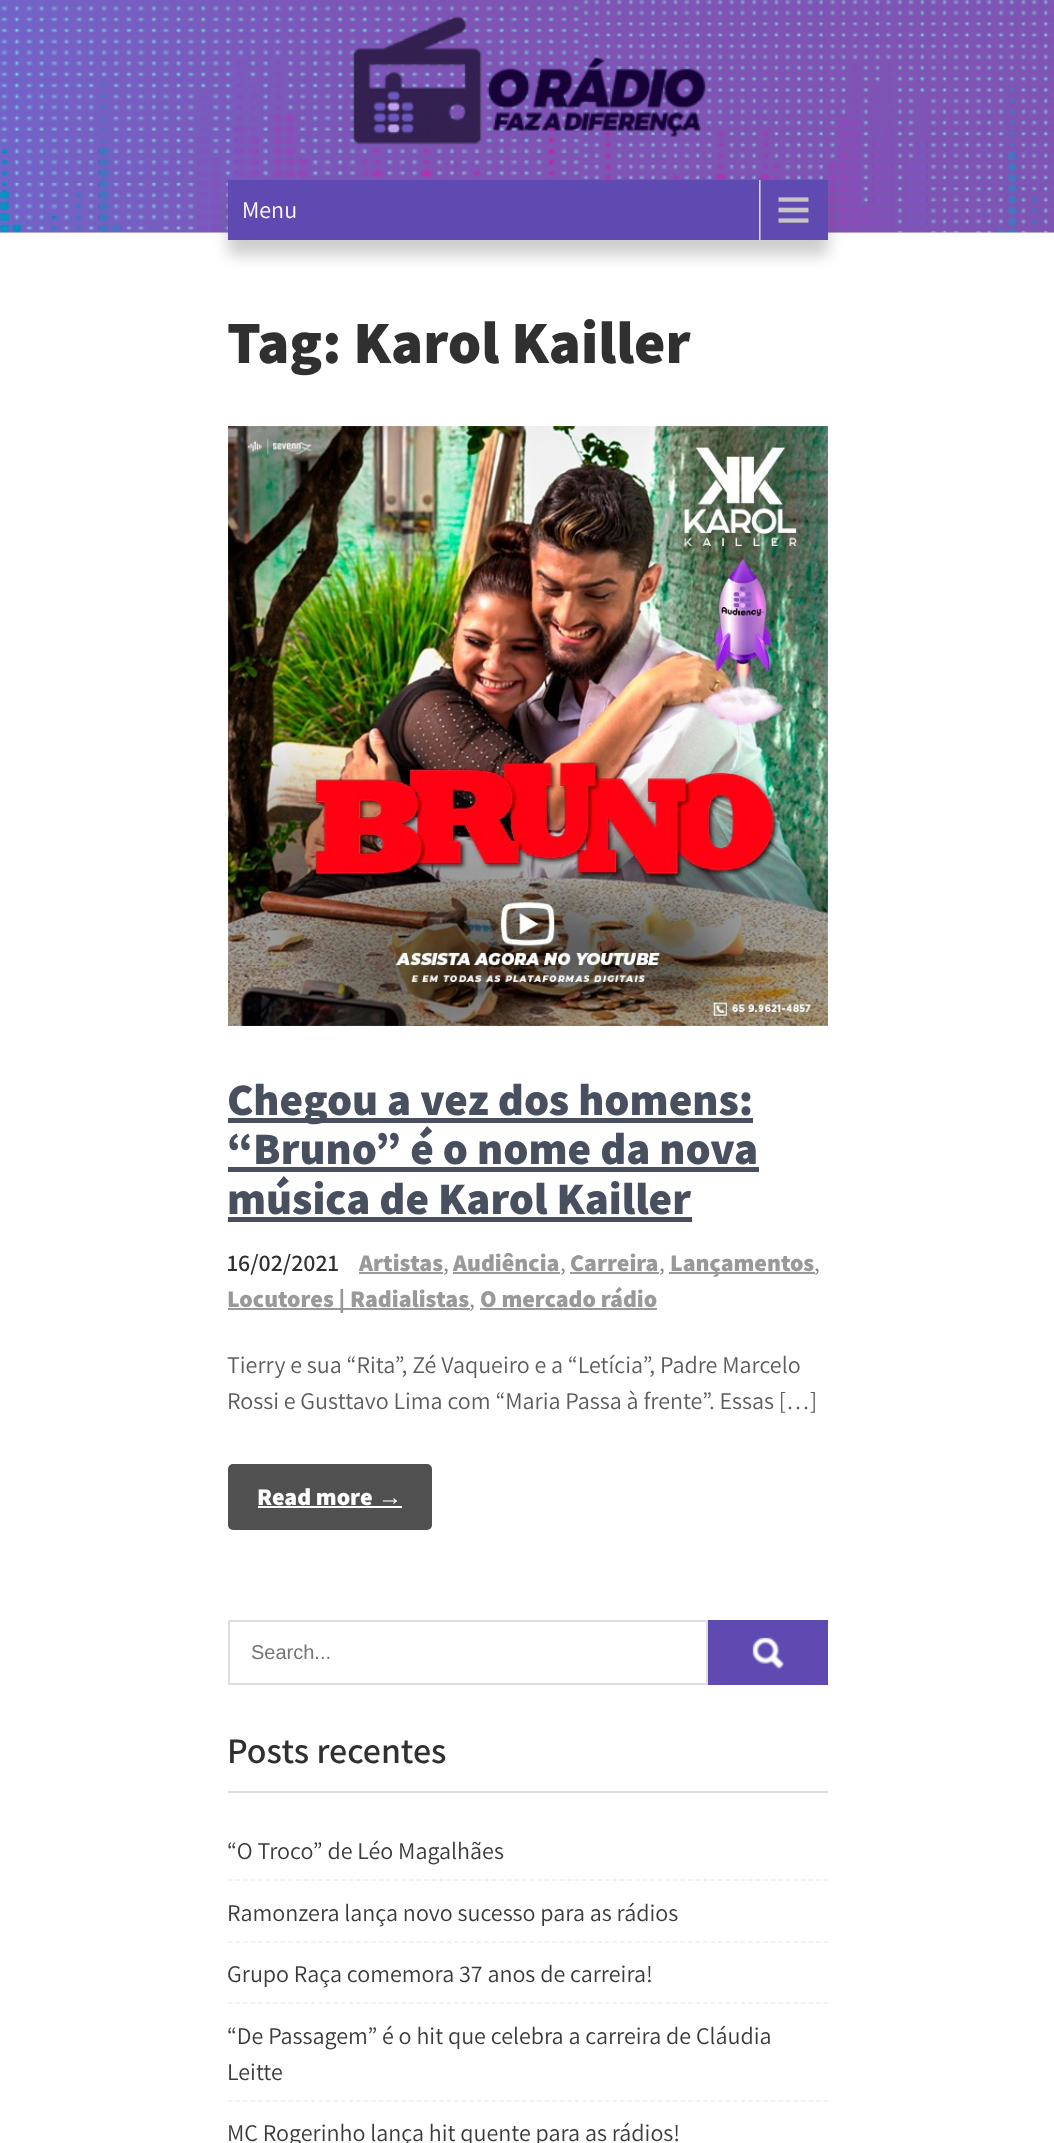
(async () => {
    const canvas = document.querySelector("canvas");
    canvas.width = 1054;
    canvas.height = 2143;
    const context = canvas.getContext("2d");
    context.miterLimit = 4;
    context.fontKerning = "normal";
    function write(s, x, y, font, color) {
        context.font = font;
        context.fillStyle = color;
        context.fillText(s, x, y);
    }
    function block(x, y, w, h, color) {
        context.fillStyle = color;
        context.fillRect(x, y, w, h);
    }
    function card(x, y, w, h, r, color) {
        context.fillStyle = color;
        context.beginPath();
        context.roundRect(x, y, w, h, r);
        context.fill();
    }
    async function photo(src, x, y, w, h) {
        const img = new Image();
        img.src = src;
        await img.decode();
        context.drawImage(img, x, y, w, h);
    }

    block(0, 0, 1054, 2143, "rgb(255, 255, 255)");
    block(0, 232, 1054, 1, "rgb(242, 242, 242)");
    await photo("media/1.png", 0, 0, 1054, 233);
    await photo("media/2.png", 352, 16, 355, 129);
    context.fillStyle = "rgba(88, 88, 88, 0.3)";
    context.filter = "blur(7.5px)";
    context.beginPath();
    context.rect(228, 195, 600, 60);
    context.fill();
    context.filter = "none";
    block(228, 180, 600, 60, "rgb(95, 74, 178)");
    await photo("media/3.png", 759, 180, 50, 60);
    write("Menu", 242, 218, "24px Assistant", "rgb(255, 255, 255)");
    write("Tag: Karol Kailler", 227, 363, "800 60px Assistant", "rgb(48, 48, 48)");
    await photo("media/4.png", 228, 426, 600, 600);
    block(228, 1118, 525, 5, "rgb(72, 79, 94)");
    write("Chegou a vez dos homens:", 227, 1115, "800 45px Assistant", "rgb(72, 79, 94)");
    write("“Bruno” é o nome da nova", 227, 1164, "800 45px Assistant", "rgb(72, 79, 94)");
    block(228, 1167, 531, 5, "rgb(72, 79, 94)");
    write("música de Karol Kailler", 227, 1214, "800 45px Assistant", "rgb(72, 79, 94)");
    block(228, 1217, 464, 5, "rgb(72, 79, 94)");
    write("16/02/2021", 227, 1271, "600 24px Assistant", "rgb(48, 48, 48)");
    write("Artistas", 359, 1271, "800 24px Assistant", "rgb(153, 153, 153)");
    write(",", 443, 1271, "24px Assistant", "rgb(136, 136, 136)");
    block(359, 1272, 84, 2, "rgb(153, 153, 153)");
    write("Audiência", 453, 1271, "800 24px Assistant", "rgb(153, 153, 153)");
    write(",", 560, 1271, "24px Assistant", "rgb(136, 136, 136)");
    block(453, 1272, 107, 2, "rgb(153, 153, 153)");
    write("Carreira", 570, 1271, "800 24px Assistant", "rgb(153, 153, 153)");
    write(",", 659, 1271, "24px Assistant", "rgb(136, 136, 136)");
    block(570, 1272, 89, 2, "rgb(153, 153, 153)");
    block(669, 1272, 146, 2, "rgb(153, 153, 153)");
    write("Lançamentos", 670, 1271, "800 24px Assistant", "rgb(153, 153, 153)");
    write(",", 814, 1271, "24px Assistant", "rgb(136, 136, 136)");
    block(228, 1308, 242, 2, "rgb(153, 153, 153)");
    write("Locutores | Radialistas", 227, 1307, "800 24px Assistant", "rgb(153, 153, 153)");
    write(",", 469, 1307, "24px Assistant", "rgb(136, 136, 136)");
    block(480, 1308, 177, 2, "rgb(153, 153, 153)");
    write("O mercado rádio", 480, 1307, "800 24px Assistant", "rgb(153, 153, 153)");
    write("Tierry e sua “Rita”, Zé Vaqueiro e a “Letícia”, Padre Marcelo", 227, 1373, "24px Assistant", "rgb(92, 92, 92)");
    write("Rossi e Gusttavo Lima com “Maria Passa à frente”. Essas […]", 227, 1409, "24px Assistant", "rgb(92, 92, 92)");
    card(228, 1464, 204, 66, 5, "rgb(80, 80, 80)");
    write("Read more", 257, 1505, "800 24px Assistant", "rgb(255, 255, 255)");
    write("→", 378, 1505, "bold 24px Liberation Sans", "rgb(255, 255, 255)");
    block(258, 1506, 144, 2, "rgb(255, 255, 255)");
    context.strokeStyle = "rgb(221, 221, 221)";
    context.lineWidth = 2;
    context.strokeRect(229, 1621, 478, 63);
    write("Search...", 251, 1659, "20px Liberation Sans", "rgb(117, 117, 117)");
    block(708, 1620, 120, 65, "rgb(95, 74, 178)");
    await photo("media/5.png", 752, 1637, 32, 32);
    block(228, 1791, 600, 2, "rgb(221, 221, 221)");
    write("Posts recentes", 227, 1763, "600 36px Assistant", "rgb(48, 48, 48)");
    context.beginPath();
    context.moveTo(228, 1880);
    context.lineTo(828, 1880);
    context.strokeStyle = "rgb(238, 238, 238)";
    context.lineWidth = 1.5;
    context.setLineDash([4.5, 3.04]);
    context.stroke();
    write("“O Troco” de Léo Magalhães", 227, 1859, "24px Assistant", "rgb(59, 59, 59)");
    context.beginPath();
    context.moveTo(228, 1942);
    context.lineTo(828, 1942);
    context.stroke();
    write("Ramonzera lança novo sucesso para as rádios", 227, 1921, "24px Assistant", "rgb(59, 59, 59)");
    context.beginPath();
    context.moveTo(228, 2003);
    context.lineTo(828, 2003);
    context.stroke();
    write("Grupo Raça comemora 37 anos de carreira!", 227, 1982, "24px Assistant", "rgb(59, 59, 59)");
    context.beginPath();
    context.moveTo(228, 2101);
    context.lineTo(828, 2101);
    context.stroke();
    write("“De Passagem” é o hit que celebra a carreira de Cláudia", 227, 2044, "24px Assistant", "rgb(59, 59, 59)");
    write("Leitte", 227, 2080, "24px Assistant", "rgb(59, 59, 59)");
    write("MC Rogerinho lança hit quente para as rádios!", 227, 2141, "24px Assistant", "rgb(59, 59, 59)");
})();
